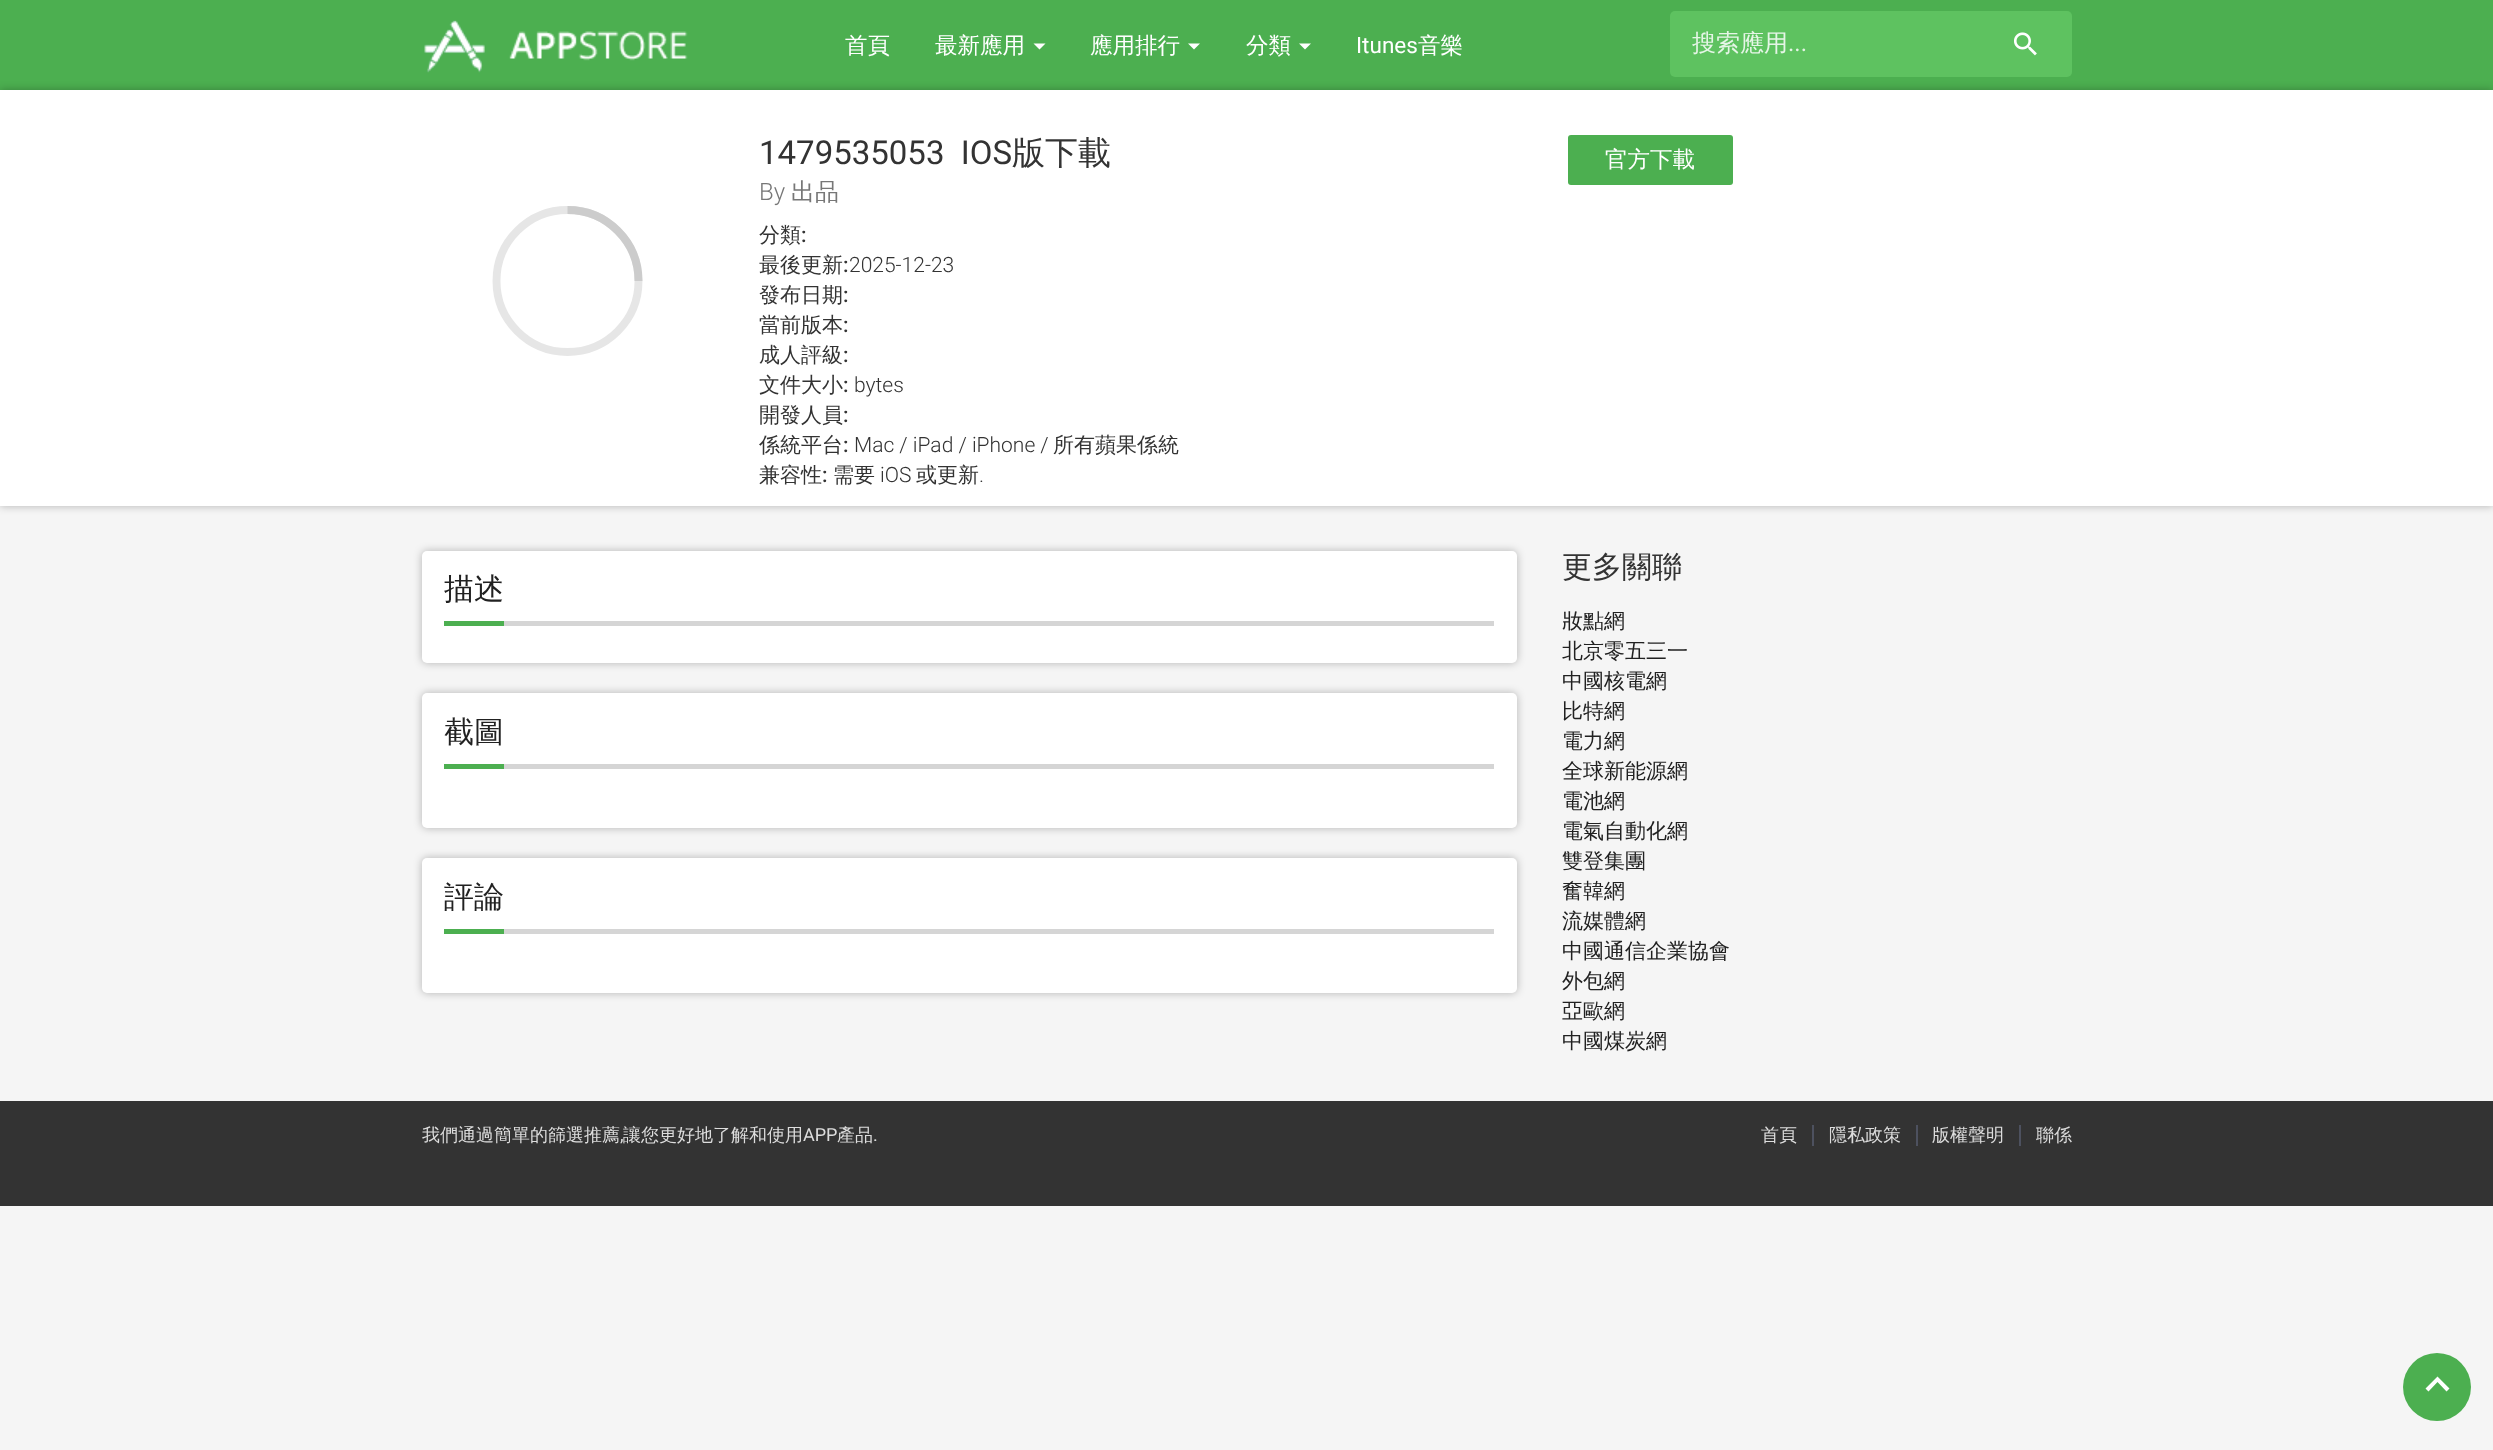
(async () => {
    const canvas = document.querySelector("canvas");
    canvas.width = 2493;
    canvas.height = 1450;
    const context = canvas.getContext("2d");
    context.miterLimit = 4;
    context.fontKerning = "normal";
    function write(s, x, y, font, color) {
        context.font = font;
        context.fillStyle = color;
        context.fillText(s, x, y);
    }
    function block(x, y, w, h, color) {
        context.fillStyle = color;
        context.fillRect(x, y, w, h);
    }
    function card(x, y, w, h, r, color) {
        context.fillStyle = color;
        context.beginPath();
        context.roundRect(x, y, w, h, r);
        context.fill();
    }
    async function photo(src, x, y, w, h) {
        const img = new Image();
        img.src = src;
        await img.decode();
        context.drawImage(img, x, y, w, h);
    }

    block(0, 0, 2493, 1450, "rgb(245, 245, 245)");
    block(0, 0, 2493, 90, "rgb(76, 175, 80)");
    await photo("media/1.png", 424, 20, 264, 53);
    write("首頁", 845, 53, "500 22.5px WenQuanYi Zen Hei", "rgb(255, 255, 255)");
    write("最新應用", 935, 53, "500 22.5px WenQuanYi Zen Hei", "rgb(255, 255, 255)");
    context.beginPath();
    context.moveTo(1033.5, 43.5);
    context.lineTo(1045.5, 43.5);
    context.lineTo(1039.5, 49.5);
    context.closePath();
    context.fill();
    write("應用排行", 1090, 53, "500 22.5px WenQuanYi Zen Hei", "rgb(255, 255, 255)");
    context.beginPath();
    context.moveTo(1188, 43.5);
    context.lineTo(1200, 43.5);
    context.lineTo(1194, 49.5);
    context.closePath();
    context.fill();
    write("分類", 1246, 53, "500 22.5px WenQuanYi Zen Hei", "rgb(255, 255, 255)");
    context.beginPath();
    context.moveTo(1299, 43.5);
    context.lineTo(1311, 43.5);
    context.lineTo(1305, 49.5);
    context.closePath();
    context.fill();
    write("Itunes", 1356, 53, "22.5px Roboto", "rgb(255, 255, 255)");
    write("音樂", 1418, 53, "500 22.5px WenQuanYi Zen Hei", "rgb(255, 255, 255)");
    card(1670, 11, 402, 66, 5, "rgb(94, 194, 96)");
    write("搜索應用", 1692, 51, "500 24px WenQuanYi Zen Hei", "rgb(229, 245, 230)");
    write("...", 1788, 51, "24px Roboto", "rgb(229, 245, 230)");
    await photo("media/2.png", 2014, 32, 23, 24);
    context.fillStyle = "rgba(0, 0, 0, 0.27)";
    context.filter = "blur(4.5px)";
    context.beginPath();
    context.rect(0, 90, 2493, 416);
    context.fill();
    context.filter = "none";
    block(0, 90, 2493, 416, "rgb(255, 255, 255)");
    write("1479535053  IOS", 759, 164, "33px Roboto", "rgb(51, 51, 51)");
    write("版下載", 1012, 164, "500 33px WenQuanYi Zen Hei", "rgb(51, 51, 51)");
    write("By", 759, 200, "300 24px Roboto", "rgb(119, 119, 119)");
    write("出品", 791, 200, "500 24px WenQuanYi Zen Hei", "rgb(119, 119, 119)");
    write("分類", 759, 242, "500 21px WenQuanYi Zen Hei", "rgb(51, 51, 51)");
    write(":", 801, 242, "500 21px Roboto", "rgb(51, 51, 51)");
    write("最後更新", 759, 272, "500 21px WenQuanYi Zen Hei", "rgb(51, 51, 51)");
    write(":", 843, 272, "500 21px Roboto", "rgb(51, 51, 51)");
    write("2025-12-23", 849, 272, "300 21px Roboto", "rgb(51, 51, 51)");
    write("發布日期", 759, 302, "500 21px WenQuanYi Zen Hei", "rgb(51, 51, 51)");
    write(":", 843, 302, "500 21px Roboto", "rgb(51, 51, 51)");
    write("當前版本", 759, 332, "500 21px WenQuanYi Zen Hei", "rgb(51, 51, 51)");
    write(":", 843, 332, "500 21px Roboto", "rgb(51, 51, 51)");
    write("成人評級", 759, 362, "500 21px WenQuanYi Zen Hei", "rgb(51, 51, 51)");
    write(":", 843, 362, "500 21px Roboto", "rgb(51, 51, 51)");
    write("文件大小", 759, 392, "500 21px WenQuanYi Zen Hei", "rgb(51, 51, 51)");
    write(":", 843, 392, "500 21px Roboto", "rgb(51, 51, 51)");
    write("bytes", 854, 392, "300 21px Roboto", "rgb(51, 51, 51)");
    write("開發人員", 759, 422, "500 21px WenQuanYi Zen Hei", "rgb(51, 51, 51)");
    write(":", 843, 422, "500 21px Roboto", "rgb(51, 51, 51)");
    write("係統平台", 759, 452, "500 21px WenQuanYi Zen Hei", "rgb(51, 51, 51)");
    write(":", 843, 452, "500 21px Roboto", "rgb(51, 51, 51)");
    write("Mac / iPad / iPhone /", 854, 452, "300 21px Roboto", "rgb(51, 51, 51)");
    write("所有蘋果係統", 1053, 452, "500 21px WenQuanYi Zen Hei", "rgb(51, 51, 51)");
    write("兼容性", 759, 482, "500 21px WenQuanYi Zen Hei", "rgb(51, 51, 51)");
    write(":", 822, 482, "500 21px Roboto", "rgb(51, 51, 51)");
    write("需要", 833, 482, "500 21px WenQuanYi Zen Hei", "rgb(51, 51, 51)");
    write("iOS", 880, 482, "300 21px Roboto", "rgb(51, 51, 51)");
    write("或更新", 916, 482, "500 21px WenQuanYi Zen Hei", "rgb(51, 51, 51)");
    write(".", 979, 482, "300 21px Roboto", "rgb(51, 51, 51)");
    card(1568, 135, 165, 50, 3, "rgb(76, 175, 80)");
    write("官方下載", 1605, 167, "500 22.5px WenQuanYi Zen Hei", "rgb(255, 255, 255)");
    context.beginPath();
    context.arc(567.5, 281, 71, 0, Math.PI * 2);
    context.strokeStyle = "rgb(230, 230, 230)";
    context.lineWidth = 7.9;
    context.stroke();
    context.beginPath();
    context.moveTo(638.5, 281);
    context.bezierCurveTo(638.5, 242, 607, 210, 567.5, 210);
    context.strokeStyle = "rgb(204, 204, 204)";
    context.stroke();
    context.fillStyle = "rgba(0, 0, 0, 0.27)";
    context.filter = "blur(4.5px)";
    context.beginPath();
    context.roundRect(422, 551, 1095, 112, 5);
    context.fill();
    context.filter = "none";
    card(422, 551, 1095, 112, 5, "rgb(255, 255, 255)");
    block(504, 621, 990, 5, "rgb(213, 213, 213)");
    block(444, 621, 60, 5, "rgb(76, 175, 80)");
    write("描述", 444, 599, "500 30px WenQuanYi Zen Hei", "rgb(33, 33, 33)");
    context.fillStyle = "rgba(0, 0, 0, 0.27)";
    context.filter = "blur(4.5px)";
    context.beginPath();
    context.roundRect(422, 693, 1095, 135, 5);
    context.fill();
    context.filter = "none";
    card(422, 693, 1095, 135, 5, "rgb(255, 255, 255)");
    block(504, 764, 990, 5, "rgb(213, 213, 213)");
    block(444, 764, 60, 5, "rgb(76, 175, 80)");
    write("截圖", 444, 742, "500 30px WenQuanYi Zen Hei", "rgb(33, 33, 33)");
    context.fillStyle = "rgba(0, 0, 0, 0.27)";
    context.filter = "blur(4.5px)";
    context.beginPath();
    context.roundRect(422, 858, 1095, 135, 5);
    context.fill();
    context.filter = "none";
    card(422, 858, 1095, 135, 5, "rgb(255, 255, 255)");
    block(504, 929, 990, 5, "rgb(213, 213, 213)");
    block(444, 929, 60, 5, "rgb(76, 175, 80)");
    write("評論", 444, 907, "500 30px WenQuanYi Zen Hei", "rgb(33, 33, 33)");
    write("更多關聯", 1562, 577, "500 30px WenQuanYi Zen Hei", "rgb(51, 51, 51)");
    write("妝點網", 1562, 628, "500 21px WenQuanYi Zen Hei", "rgb(33, 33, 33)");
    write("北京零五三一", 1562, 658, "500 21px WenQuanYi Zen Hei", "rgb(33, 33, 33)");
    write("中國核電網", 1562, 688, "500 21px WenQuanYi Zen Hei", "rgb(33, 33, 33)");
    write("比特網", 1562, 718, "500 21px WenQuanYi Zen Hei", "rgb(33, 33, 33)");
    write("電力網", 1562, 748, "500 21px WenQuanYi Zen Hei", "rgb(33, 33, 33)");
    write("全球新能源網", 1562, 778, "500 21px WenQuanYi Zen Hei", "rgb(33, 33, 33)");
    write("電池網", 1562, 808, "500 21px WenQuanYi Zen Hei", "rgb(33, 33, 33)");
    write("電氣自動化網", 1562, 838, "500 21px WenQuanYi Zen Hei", "rgb(33, 33, 33)");
    write("雙登集團", 1562, 868, "500 21px WenQuanYi Zen Hei", "rgb(33, 33, 33)");
    write("奮韓網", 1562, 898, "500 21px WenQuanYi Zen Hei", "rgb(33, 33, 33)");
    write("流媒體網", 1562, 928, "500 21px WenQuanYi Zen Hei", "rgb(33, 33, 33)");
    write("中國通信企業協會", 1562, 958, "500 21px WenQuanYi Zen Hei", "rgb(33, 33, 33)");
    write("外包網", 1562, 988, "500 21px WenQuanYi Zen Hei", "rgb(33, 33, 33)");
    write("亞歐網", 1562, 1018, "500 21px WenQuanYi Zen Hei", "rgb(33, 33, 33)");
    write("中國煤炭網", 1562, 1048, "500 21px WenQuanYi Zen Hei", "rgb(33, 33, 33)");
    block(0, 1101, 2493, 105, "rgb(51, 51, 51)");
    write("我們通過簡單的篩選推薦", 422, 1141, "500 18px WenQuanYi Zen Hei", "rgb(221, 221, 221)");
    write("讓您更好地了解和使用", 623, 1141, "500 18px WenQuanYi Zen Hei", "rgb(221, 221, 221)");
    write("APP", 803, 1141, "18px Roboto", "rgb(221, 221, 221)");
    write("產品", 837, 1141, "500 18px WenQuanYi Zen Hei", "rgb(221, 221, 221)");
    write(",", 620, 1141, "18px Roboto", "rgb(221, 221, 221)");
    write(".", 873, 1141, "18px Roboto", "rgb(221, 221, 221)");
    write("首頁", 1761, 1141, "500 18px WenQuanYi Zen Hei", "rgb(221, 221, 221)");
    block(1812, 1125, 2, 21, "rgb(77, 81, 95)");
    write("隱私政策", 1829, 1141, "500 18px WenQuanYi Zen Hei", "rgb(221, 221, 221)");
    block(1916, 1125, 2, 21, "rgb(77, 81, 95)");
    write("版權聲明", 1932, 1141, "500 18px WenQuanYi Zen Hei", "rgb(221, 221, 221)");
    block(2019, 1125, 2, 21, "rgb(77, 81, 95)");
    write("聯係", 2036, 1141, "500 18px WenQuanYi Zen Hei", "rgb(221, 221, 221)");
    context.fillStyle = "rgb(76, 175, 80)";
    context.beginPath();
    context.arc(2437, 1387, 34, 0, Math.PI * 2);
    context.fill();
    context.fillStyle = "rgb(255, 255, 255)";
    context.beginPath();
    context.moveTo(2428.5, 1391.5);
    context.lineTo(2425.5, 1388.5);
    context.lineTo(2437.5, 1376.5);
    context.lineTo(2449.5, 1388.5);
    context.lineTo(2446.5, 1391.5);
    context.lineTo(2437.5, 1382);
    context.closePath();
    context.fill();
})();
